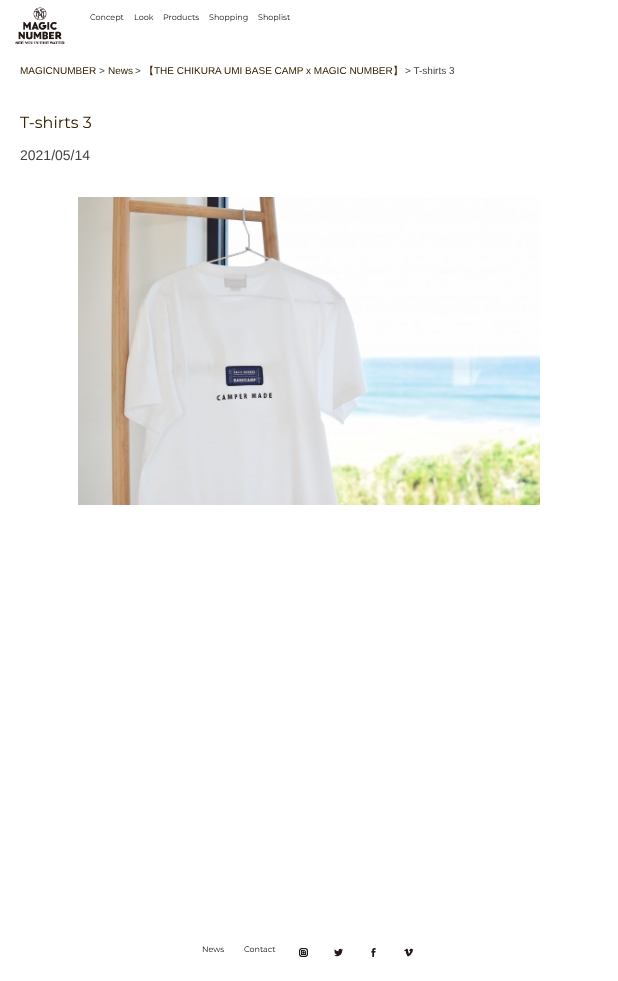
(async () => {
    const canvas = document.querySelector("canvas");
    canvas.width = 618;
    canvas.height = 981;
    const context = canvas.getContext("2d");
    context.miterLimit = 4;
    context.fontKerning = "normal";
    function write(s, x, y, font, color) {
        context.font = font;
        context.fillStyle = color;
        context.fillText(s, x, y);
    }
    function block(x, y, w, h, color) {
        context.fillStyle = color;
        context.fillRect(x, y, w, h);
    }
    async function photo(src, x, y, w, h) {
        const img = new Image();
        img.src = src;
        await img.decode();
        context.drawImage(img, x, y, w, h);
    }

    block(0, 0, 618, 981, "rgb(255, 255, 255)");
    await photo("media/1.png", 15, 7, 50, 37);
    write("Concept", 90, 20, "100 8px Montserrat", "rgb(19, 19, 19)");
    write("Look", 134, 20, "100 8px Montserrat", "rgb(19, 19, 19)");
    write("Products", 163, 20, "100 8px Montserrat", "rgb(19, 19, 19)");
    write("Shopping", 209, 20, "100 8px Montserrat", "rgb(19, 19, 19)");
    write("Shoplist", 258, 20, "100 8px Montserrat", "rgb(19, 19, 19)");
    write("MAGICNUMBER", 20, 74, "10px Liberation Sans", "rgb(54, 33, 1)");
    write(">", 99, 74, "10px Liberation Sans", "rgb(67, 67, 67)");
    write("News", 108, 74, "10px Liberation Sans", "rgb(54, 33, 1)");
    write(">", 135, 74, "10px Liberation Sans", "rgb(67, 67, 67)");
    write("【", 144, 74, "500 10px WenQuanYi Zen Hei", "rgb(54, 33, 1)");
    write("THE CHIKURA UMI BASE CAMP x MAGIC NUMBER", 154, 74, "10px Liberation Sans", "rgb(54, 33, 1)");
    write("】", 393, 74, "500 10px WenQuanYi Zen Hei", "rgb(54, 33, 1)");
    write("> T-shirts 3", 405, 74, "10px Liberation Sans", "rgb(67, 67, 67)");
    write("T-shirts 3", 20, 128, "100 16px Montserrat", "rgb(54, 33, 1)");
    write("2021/05/14", 20, 160, "14px Liberation Sans", "rgb(67, 67, 67)");
    await photo("media/2.png", 78, 197, 462, 308);
    write("News", 202, 952, "100 8px Montserrat", "rgb(19, 19, 19)");
    write("Contact", 244, 952, "100 8px Montserrat", "rgb(19, 19, 19)");
    await photo("media/3.png", 299, 948, 9, 9);
    await photo("media/4.png", 334, 948, 9, 9);
    await photo("media/5.png", 371, 948, 5, 9);
    await photo("media/6.png", 404, 948, 9, 9);
})();
